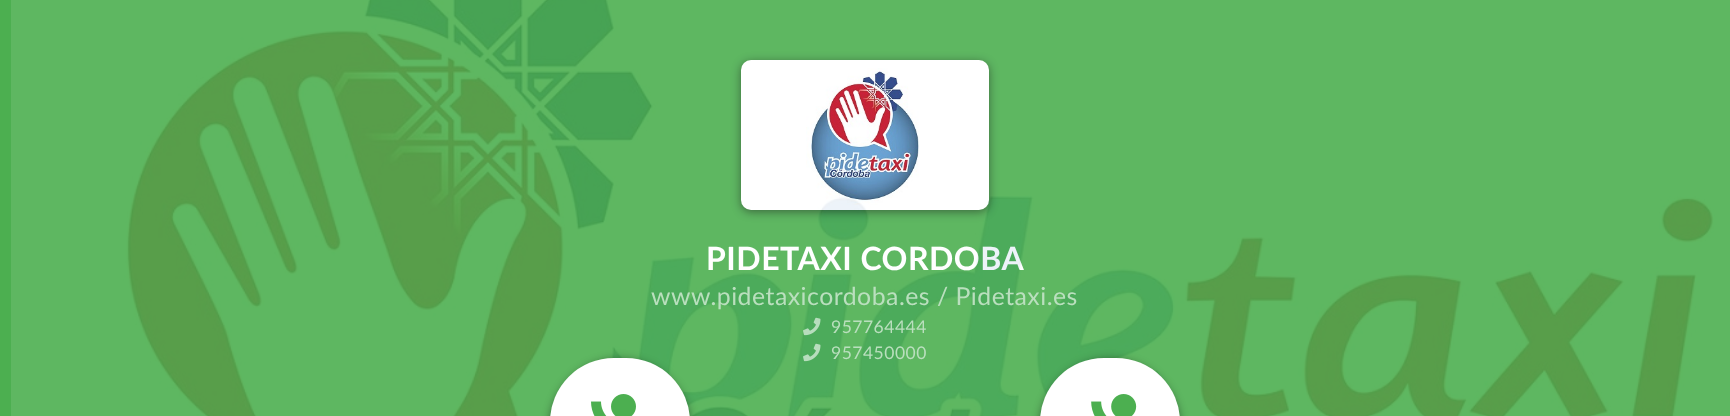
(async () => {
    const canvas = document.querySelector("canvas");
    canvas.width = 1730;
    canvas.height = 416;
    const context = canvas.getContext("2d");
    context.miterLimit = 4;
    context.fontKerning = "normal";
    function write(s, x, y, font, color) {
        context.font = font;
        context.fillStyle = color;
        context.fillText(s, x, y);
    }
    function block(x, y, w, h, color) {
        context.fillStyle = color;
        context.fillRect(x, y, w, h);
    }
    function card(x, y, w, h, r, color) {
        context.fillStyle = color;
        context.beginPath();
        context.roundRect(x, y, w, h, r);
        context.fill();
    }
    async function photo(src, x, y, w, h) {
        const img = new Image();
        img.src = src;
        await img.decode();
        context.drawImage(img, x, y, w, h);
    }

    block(0, 0, 1730, 416, "rgb(76, 175, 80)");
    context.fillStyle = "rgba(0, 0, 0, 0.5)";
    context.filter = "blur(5px)";
    context.beginPath();
    context.roundRect(741, 62, 248, 150, 10);
    context.fill();
    context.filter = "none";
    card(741, 60, 248, 150, 10, "rgb(255, 255, 255)");
    await photo("media/2.png", 806, 68, 113, 137);
    context.letterSpacing = "0.5px";
    write("PIDETAXI CORDOBA", 706, 270, "bold 32px Lato", "rgb(255, 255, 255)");
    await photo("media/1.png", 11, 0, 1719, 416);
    write("www.pidetaxicordoba.es / Pidetaxi.es", 651, 305, "24.8px Lato", "rgb(186, 223, 190)");
    await photo("media/3.png", 803, 317, 18, 19);
    write("957764444", 831, 333, "17.5px Lato", "rgb(186, 223, 190)");
    await photo("media/4.png", 803, 343, 18, 19);
    write("957450000", 831, 359, "17.5px Lato", "rgb(186, 223, 190)");
    context.fillStyle = "rgba(0, 0, 0, 0.5)";
    context.filter = "blur(5px)";
    context.beginPath();
    context.roundRect(550, 360, 140, 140, 70);
    context.fill();
    context.filter = "none";
    card(550, 358, 140, 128, 70, "rgb(255, 255, 255)");
    await photo("media/5.png", 591, 394, 45, 22);
    context.fillStyle = "rgba(0, 0, 0, 0.5)";
    context.filter = "blur(5px)";
    context.beginPath();
    context.roundRect(1040, 360, 140, 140, 70);
    context.fill();
    context.filter = "none";
    card(1040, 358, 140, 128, 70, "rgb(255, 255, 255)");
    await photo("media/6.png", 1091, 394, 46, 22);
})();
